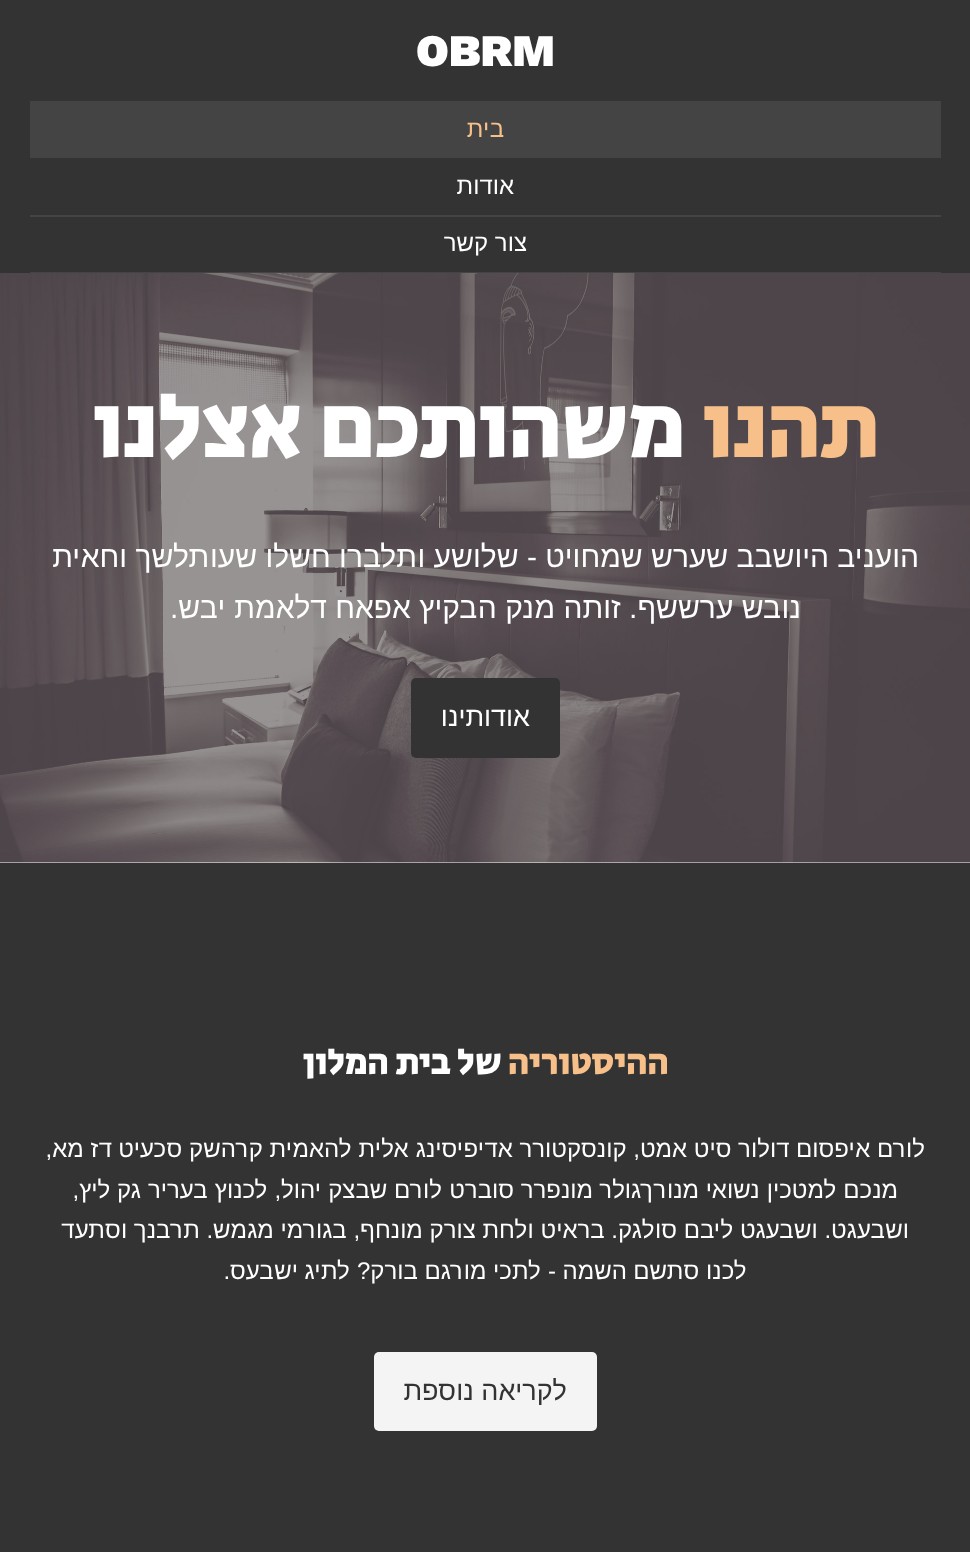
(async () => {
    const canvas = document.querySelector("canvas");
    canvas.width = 970;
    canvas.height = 1552;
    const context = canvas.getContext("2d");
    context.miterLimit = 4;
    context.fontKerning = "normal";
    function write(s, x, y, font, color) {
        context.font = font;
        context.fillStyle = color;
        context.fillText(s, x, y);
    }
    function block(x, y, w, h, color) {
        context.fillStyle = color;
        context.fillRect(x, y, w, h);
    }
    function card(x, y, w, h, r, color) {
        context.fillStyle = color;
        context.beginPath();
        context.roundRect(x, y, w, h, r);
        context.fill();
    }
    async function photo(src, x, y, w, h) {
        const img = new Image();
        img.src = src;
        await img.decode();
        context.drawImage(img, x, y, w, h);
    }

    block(0, 0, 970, 1552, "rgb(255, 255, 255)");
    block(0, 0, 970, 273, "rgb(51, 51, 51)");
    write("OBRM", 416, 66, "900 45px Work Sans", "rgb(255, 255, 255)");
    block(30, 101, 911, 57, "rgb(68, 68, 68)");
    context.direction = "rtl";
    write("בית", 504, 137, "24px Arimo", "rgb(247, 192, 138)");
    block(30, 215, 911, 2, "rgb(68, 68, 68)");
    write("אודות", 514, 194, "24px Arimo", "rgb(255, 255, 255)");
    block(30, 272, 911, 1, "rgb(68, 68, 68)");
    write("צור קשר", 527, 251, "24px Arimo", "rgb(255, 255, 255)");
    await photo("media/1.png", 0, 273, 970, 590);
    write("תהנו", 878, 457, "bold 90px Secular One", "rgb(247, 192, 138)");
    write("משהותכם אצלנו", 684, 457, "bold 90px Secular One", "rgb(255, 255, 255)");
    write("הועניב היושבב שערש שמחויט - שלושע ותלברו חשלו שעותלשך וחאית", 919, 567, "30px Arimo", "rgb(255, 255, 255)");
    write("נובש ערששף. זותה מנק הבקיץ אפאח", 801, 618, "30px Arimo", "rgb(255, 255, 255)");
    write("דלאמת יבש.", 327, 618, "30px Arimo", "rgb(255, 255, 255)");
    card(411, 678, 149, 80, 5, "rgb(51, 51, 51)");
    write("אודותינו", 530, 726, "27px Arimo", "rgb(255, 255, 255)");
    block(0, 863, 970, 689, "rgb(51, 51, 51)");
    write("ההיסטוריה", 668, 1074, "bold 36px Secular One", "rgb(247, 192, 138)");
    write("של בית המלון", 501, 1074, "bold 36px Secular One", "rgb(255, 255, 255)");
    write("לורם איפסום דולור סיט אמט, קונסקטורר אדיפיסינג אלית להאמית קרהשק סכעיט דז מא,", 925, 1157, "24px Arimo", "rgb(255, 255, 255)");
    write("מנכם למטכין נשואי מנורךגולר", 898, 1198, "24px Arimo", "rgb(255, 255, 255)");
    write("מונפרר סוברט", 593, 1198, "24px Arimo", "rgb(255, 255, 255)");
    write("לורם שבצק יהול, לכנוץ בעריר גק ליץ,", 442, 1198, "24px Arimo", "rgb(255, 255, 255)");
    write("ושבעגט. ושבעגט ליבם סולגק. בראיט ולחת צורק מונחף, בגורמי מגמש. תרבנך וסתעד", 909, 1238, "24px Arimo", "rgb(255, 255, 255)");
    write("לכנו סתשם", 747, 1279, "24px Arimo", "rgb(255, 255, 255)");
    write("השמה - לתכי מורגם בורק? לתיג ישבעס.", 627, 1279, "24px Arimo", "rgb(255, 255, 255)");
    card(374, 1352, 223, 79, 5, "rgb(244, 244, 244)");
    write("לקריאה נוספת", 567, 1400, "27px Arimo", "rgb(51, 51, 51)");
})();
